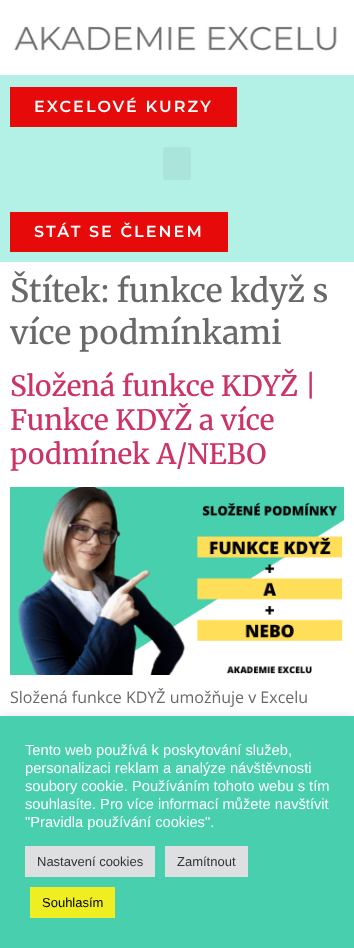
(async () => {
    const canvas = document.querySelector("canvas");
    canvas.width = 354;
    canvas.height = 948;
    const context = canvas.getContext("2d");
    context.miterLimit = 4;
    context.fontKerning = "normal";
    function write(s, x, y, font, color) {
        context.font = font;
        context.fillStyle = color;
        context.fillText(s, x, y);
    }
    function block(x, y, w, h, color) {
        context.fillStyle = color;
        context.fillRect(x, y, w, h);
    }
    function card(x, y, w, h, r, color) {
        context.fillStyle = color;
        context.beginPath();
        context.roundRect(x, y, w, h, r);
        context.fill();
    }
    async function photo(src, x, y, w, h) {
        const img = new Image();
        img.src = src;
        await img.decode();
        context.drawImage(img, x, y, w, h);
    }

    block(0, 0, 354, 948, "rgb(255, 255, 255)");
    await photo("media/1.png", 14, 26, 323, 25);
    block(0, 75, 354, 187, "rgb(179, 240, 230)");
    block(10, 87, 227, 40, "rgb(231, 10, 10)");
    context.letterSpacing = "2.1px";
    write("EXCELOVÉ KURZY", 34, 112, "600 16px Montserrat", "rgb(255, 255, 255)");
    card(163, 147, 28, 33, 3, "rgb(170, 228, 219)");
    block(10, 212, 218, 40, "rgb(231, 10, 10)");
    write("STÁT SE ČLENEM", 34, 237, "600 16px Montserrat", "rgb(255, 255, 255)");
    context.letterSpacing = "0px";
    write("Štítek: funkce když s", 10, 302, "500 32px Merriweather", "rgb(105, 105, 105)");
    write("více podmínkami", 10, 344, "500 32px Merriweather", "rgb(105, 105, 105)");
    write("Složená funkce KDYŽ |", 10, 396, "500 28px Merriweather", "rgb(204, 51, 102)");
    write("Funkce KDYŽ a více", 10, 430, "500 28px Merriweather", "rgb(204, 51, 102)");
    write("podmínek A/NEBO", 10, 464, "500 28px Merriweather", "rgb(204, 51, 102)");
    await photo("media/2.png", 10, 487, 334, 188);
    write("Složená funkce KDYŽ umožňuje v Excelu", 10, 703, "16px Open Sans", "rgb(105, 105, 105)");
    context.fillStyle = "rgba(172, 171, 171, 0.3)";
    context.filter = "blur(5px)";
    context.beginPath();
    context.rect(0, 715, 354, 232);
    context.fill();
    context.filter = "none";
    block(0, 716, 354, 232, "rgb(72, 207, 173)");
    write("Tento web používá k poskytování služeb,", 25, 755, "14.7px Liberation Sans", "rgb(255, 255, 255)");
    write("personalizaci reklam a analýze návštěvnosti", 25, 773, "14.7px Liberation Sans", "rgb(255, 255, 255)");
    write("soubory cookie. Používáním tohoto webu s tím", 25, 791, "14.7px Liberation Sans", "rgb(255, 255, 255)");
    write("souhlasíte. Pro více informací můžete navštívit", 25, 809, "14.7px Liberation Sans", "rgb(255, 255, 255)");
    write("\"Pravidla používání cookies\".", 25, 827, "14.7px Liberation Sans", "rgb(255, 255, 255)");
    block(25, 846, 130, 31, "rgb(222, 223, 224)");
    write("Nastavení cookies", 37, 866, "13px Liberation Sans", "rgb(51, 51, 51)");
    block(165, 846, 83, 31, "rgb(222, 223, 224)");
    write("Zamítnout", 177, 866, "13px Liberation Sans", "rgb(51, 51, 51)");
    block(30, 887, 85, 31, "rgb(238, 238, 34)");
    write("Souhlasím", 42, 907, "13px Liberation Sans", "rgb(0, 0, 0)");
})();
